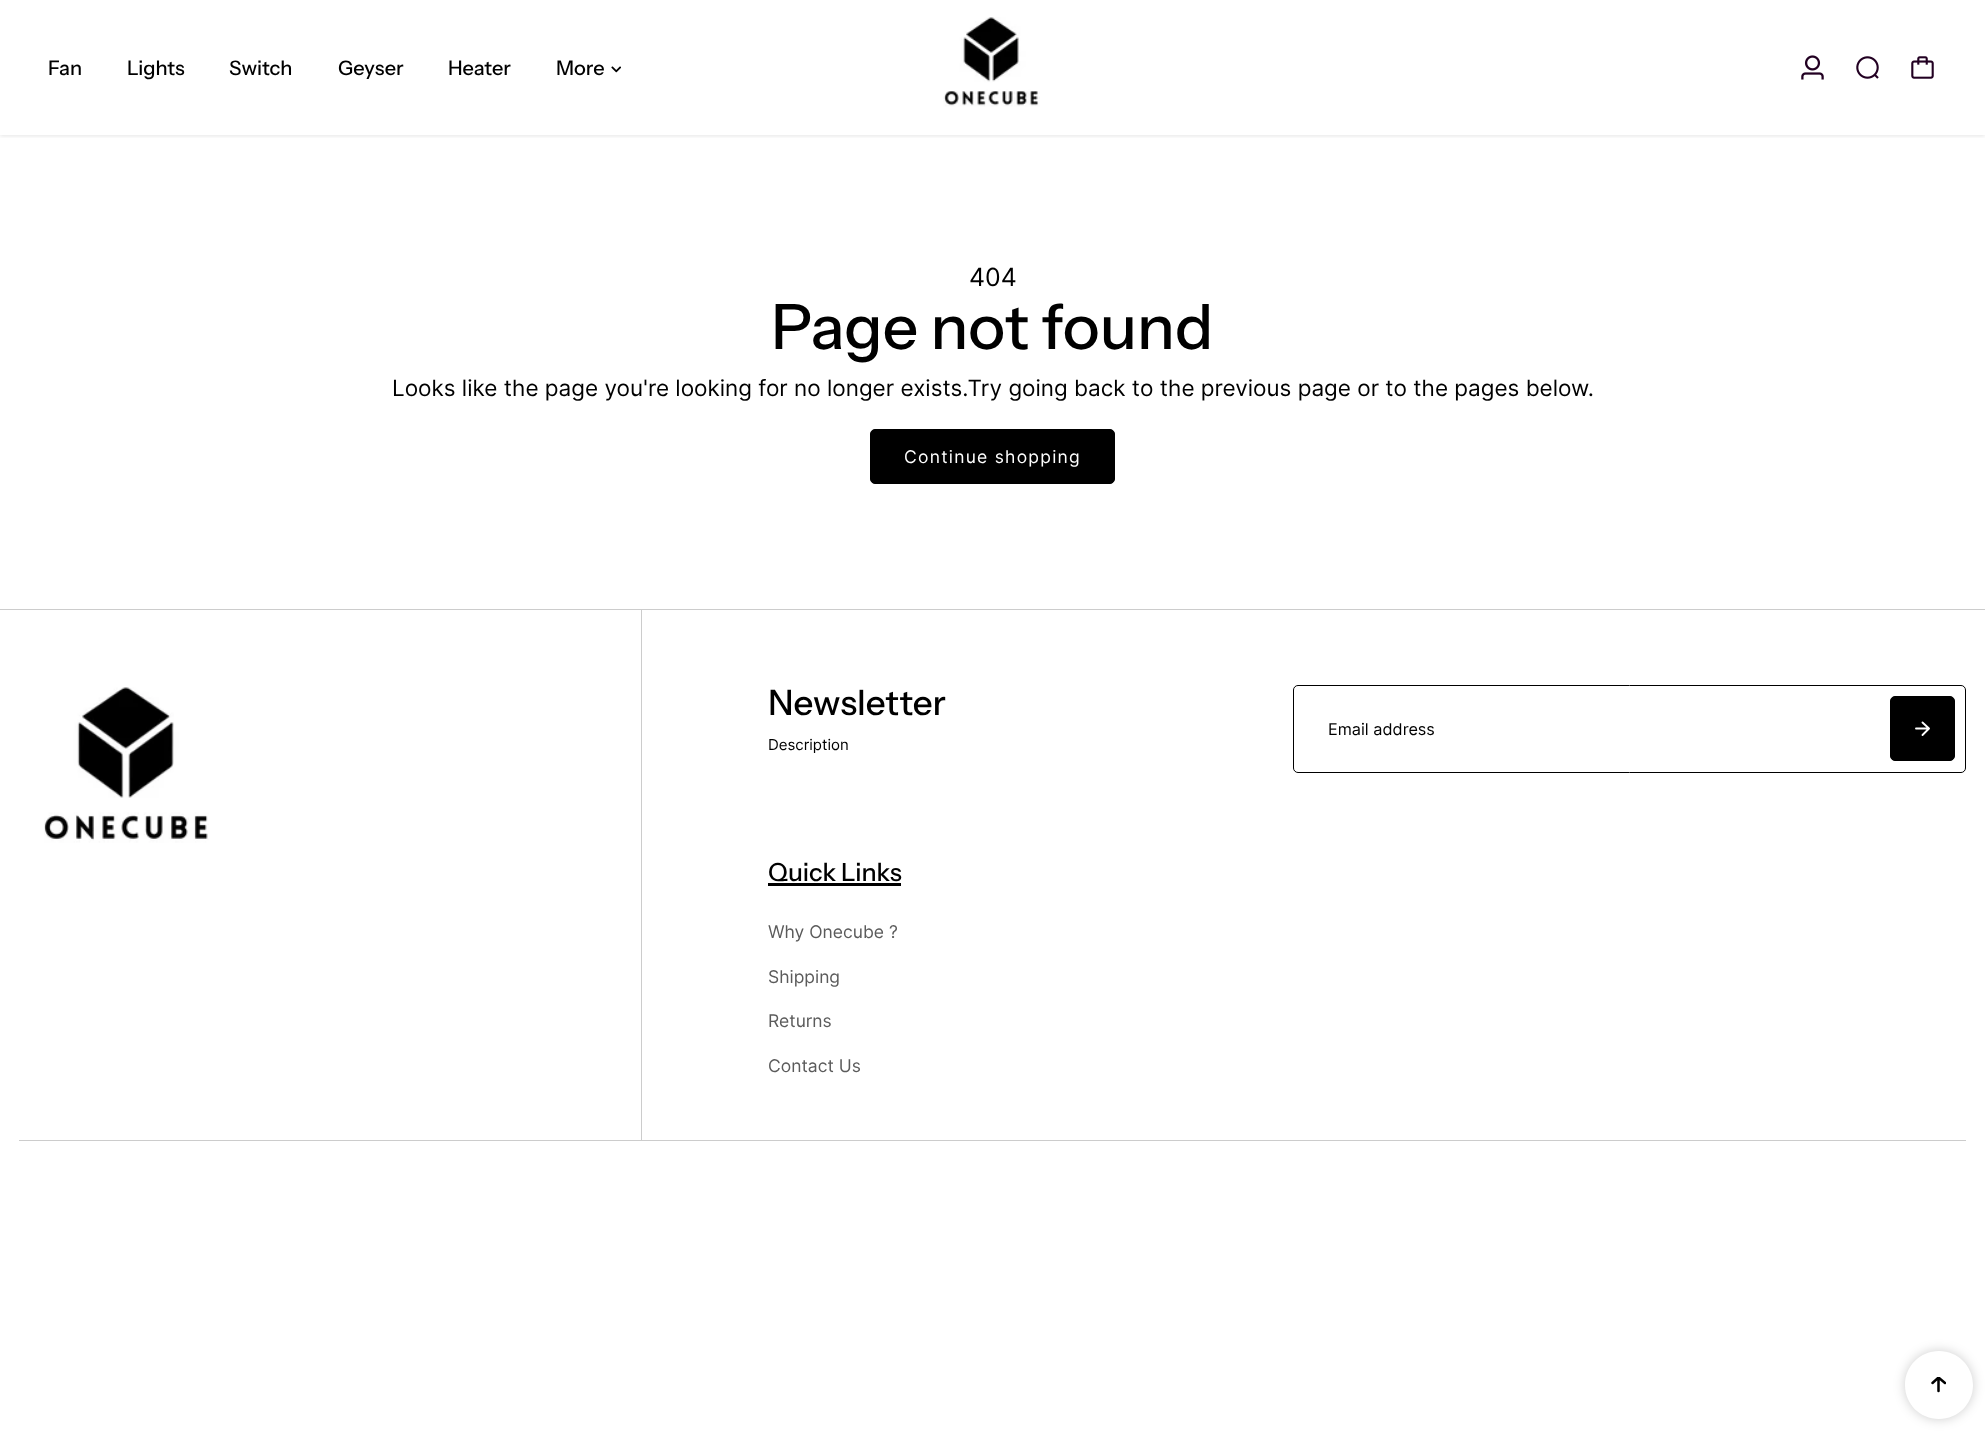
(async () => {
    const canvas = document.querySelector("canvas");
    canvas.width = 1985;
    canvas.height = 1443;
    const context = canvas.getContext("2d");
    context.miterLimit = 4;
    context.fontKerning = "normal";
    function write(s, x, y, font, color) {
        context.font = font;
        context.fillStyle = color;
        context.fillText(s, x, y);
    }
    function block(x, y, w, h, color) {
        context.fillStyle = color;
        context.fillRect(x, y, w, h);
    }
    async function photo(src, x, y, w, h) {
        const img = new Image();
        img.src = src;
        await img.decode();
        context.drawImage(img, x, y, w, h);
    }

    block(0, 0, 1985, 1443, "rgb(255, 255, 255)");
    context.save();
    context.beginPath();
    context.rect(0, 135, 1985, 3);
    context.clip();
    context.fillStyle = "rgba(0, 0, 0, 0.1)";
    context.filter = "blur(2px)";
    context.beginPath();
    context.rect(0, 1, 1985, 135);
    context.fill();
    context.filter = "none";
    context.restore();
    write("Fan", 48, 75, "500 20px Instrument Sans", "rgb(0, 0, 0)");
    write("Lights", 127, 75, "500 20px Instrument Sans", "rgb(0, 0, 0)");
    write("Switch", 229, 75, "500 20px Instrument Sans", "rgb(0, 0, 0)");
    write("Geyser", 338, 75, "500 20px Instrument Sans", "rgb(0, 0, 0)");
    write("Heater", 448, 75, "500 20px Instrument Sans", "rgb(0, 0, 0)");
    write("More", 556, 75, "500 20px Instrument Sans", "rgb(0, 0, 0)");
    await photo("media/1.png", 611, 66, 10, 7);
    await photo("media/2.png", 943, 17, 97, 90);
    await photo("media/3.png", 1801, 55, 23, 25);
    await photo("media/4.png", 1856, 56, 23, 23);
    await photo("media/5.png", 1911, 56, 23, 23);
    write("404", 969, 286, "25px Inter", "rgb(0, 0, 0)");
    write("Page not found", 771, 349, "500 62.5px Instrument Sans", "rgb(0, 0, 0)");
    write("Looks like the page you're looking for no longer exists.Try going back to the previous page or to the pages below.", 392, 396, "22.5px Inter", "rgb(0, 0, 0)");
    context.beginPath();
    context.roundRect(870.5, 429.5, 244, 54, 4.5);
    context.fill();
    context.strokeStyle = "rgb(0, 0, 0)";
    context.stroke();
    context.letterSpacing = "1.25px";
    write("Continue shopping", 904, 463, "17.5px Inter", "rgb(255, 255, 255)");
    block(0, 609, 1985, 1, "rgb(204, 204, 204)");
    block(641, 610, 1, 530, "rgb(204, 204, 204)");
    await photo("media/6.png", 44, 687, 165, 156);
    context.letterSpacing = "0px";
    write("Newsletter", 768, 715, "500 35px Instrument Sans", "rgb(0, 0, 0)");
    write("Description", 768, 750, "15px Inter", "rgb(0, 0, 0)");
    context.beginPath();
    context.roundRect(1293.5, 685.5, 672, 87, 4.5);
    context.stroke();
    write("Email address", 1328, 735, "16.25px Inter", "rgb(0, 0, 0)");
    context.beginPath();
    context.roundRect(1890.5, 696.5, 64, 64, 4.5);
    context.fill();
    context.stroke();
    context.beginPath();
    context.moveTo(1916, 728.5);
    context.lineTo(1928, 728.5);
    context.moveTo(1922.5, 735);
    context.lineTo(1929, 728.5);
    context.lineTo(1922.5, 722.5);
    context.strokeStyle = "rgb(255, 255, 255)";
    context.lineWidth = 1.9;
    context.lineCap = "round";
    context.lineJoin = "round";
    context.stroke();
    write("Quick Links", 768, 881, "500 25px Instrument Sans", "rgb(0, 0, 0)");
    block(768, 883, 133, 3, "rgb(0, 0, 0)");
    write("Why Onecube ?", 768, 938, "17.5px Inter", "rgb(91, 91, 91)");
    write("Shipping", 768, 983, "17.5px Inter", "rgb(91, 91, 91)");
    write("Returns", 768, 1027, "17.5px Inter", "rgb(91, 91, 91)");
    write("Contact Us", 768, 1072, "17.5px Inter", "rgb(91, 91, 91)");
    block(19, 1140, 1947, 1, "rgb(204, 204, 204)");
    context.save();
    context.beginPath();
    context.moveTo(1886, 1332);
    context.lineTo(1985, 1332);
    context.lineTo(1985, 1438);
    context.lineTo(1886, 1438);
    context.closePath();
    context.moveTo(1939, 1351);
    context.bezierCurveTo(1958, 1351, 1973, 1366, 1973, 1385);
    context.bezierCurveTo(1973, 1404, 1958, 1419, 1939, 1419);
    context.bezierCurveTo(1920, 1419, 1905, 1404, 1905, 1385);
    context.bezierCurveTo(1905, 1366, 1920, 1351, 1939, 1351);
    context.closePath();
    context.clip("evenodd");
    context.fillStyle = "rgba(0, 0, 0, 0.2)";
    context.filter = "blur(6px)";
    context.beginPath();
    context.roundRect(1905, 1351, 68, 68, 34);
    context.fill();
    context.filter = "none";
    context.restore();
    context.save();
    context.beginPath();
    context.moveTo(1931, 1393);
    context.lineTo(1931, 1377);
    context.lineTo(1946, 1377);
    context.lineTo(1946, 1393);
    context.closePath();
    context.clip();
    context.beginPath();
    context.moveTo(1938.5, 1391);
    context.lineTo(1938.5, 1378);
    context.moveTo(1945, 1383);
    context.lineTo(1938.5, 1377.5);
    context.lineTo(1932.5, 1383);
    context.strokeStyle = "rgb(0, 0, 0)";
    context.lineWidth = 2.5;
    context.stroke();
    context.restore();
})();
